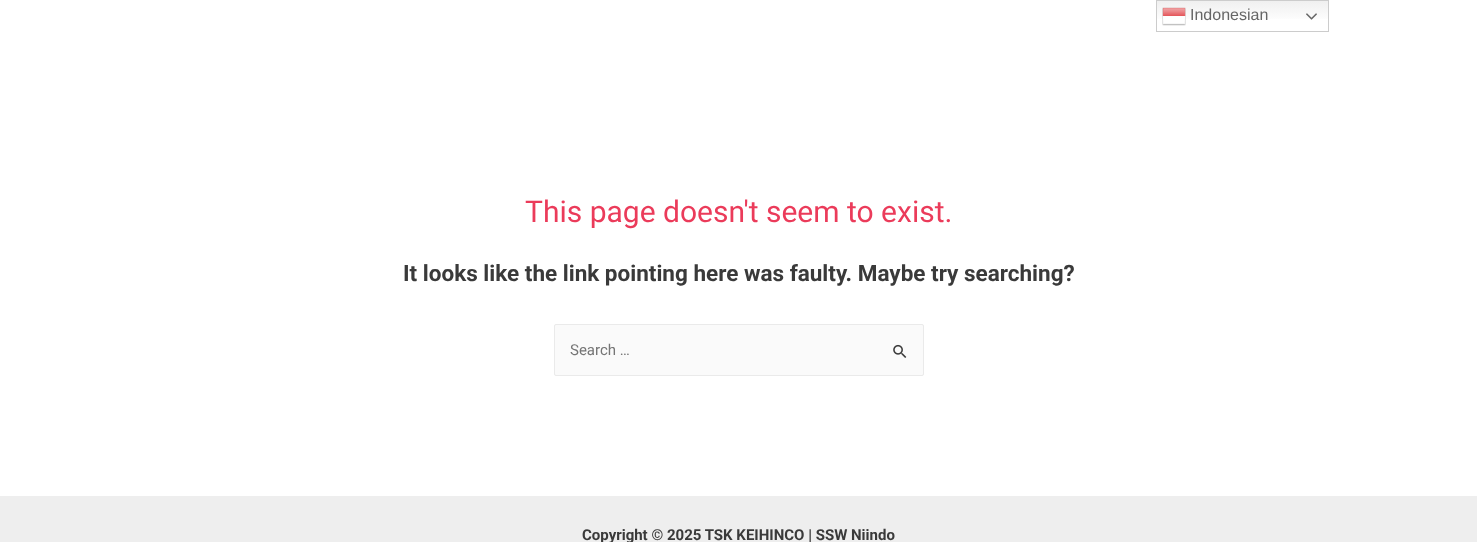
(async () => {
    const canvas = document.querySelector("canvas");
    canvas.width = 1477;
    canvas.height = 542;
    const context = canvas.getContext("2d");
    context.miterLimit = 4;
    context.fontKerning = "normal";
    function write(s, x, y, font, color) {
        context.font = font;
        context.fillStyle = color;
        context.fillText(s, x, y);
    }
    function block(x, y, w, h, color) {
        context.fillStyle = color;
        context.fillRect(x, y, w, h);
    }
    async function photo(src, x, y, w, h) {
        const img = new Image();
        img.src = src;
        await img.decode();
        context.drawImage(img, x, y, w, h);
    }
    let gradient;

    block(0, 0, 1477, 542, "rgb(255, 255, 255)");
    gradient = context.createLinearGradient(1243, 0, 1243, 32);
    gradient.addColorStop(0, "rgb(239, 239, 239)");
    gradient.addColorStop(0.7, "rgb(255, 255, 255)");
    context.fillStyle = gradient;
    context.fillRect(1157, 1, 171, 18);
    context.strokeStyle = "rgb(204, 204, 204)";
    context.strokeRect(1156.5, 0.5, 172, 31);
    await photo("media/1.png", 1162, 7, 24, 19);
    write("Indonesian", 1190, 20, "16px Liberation Sans", "rgb(102, 102, 102)");
    await photo("media/2.png", 1306, 13, 11, 7);
    write("This page doesn't seem to exist.", 525, 222, "30px Roboto", "rgb(235, 59, 90)");
    write("It looks like the link pointing here was faulty. Maybe try searching?", 403, 281, "bold 22.5px Roboto", "rgb(58, 58, 58)");
    context.fillStyle = "rgb(250, 250, 250)";
    context.beginPath();
    context.roundRect(554.5, 324.5, 369, 51, 1.5);
    context.fill();
    context.strokeStyle = "rgb(234, 234, 234)";
    context.stroke();
    write("Search …", 570, 355, "15px Roboto", "rgb(117, 117, 117)");
    await photo("media/3.png", 893, 344, 14, 14);
    block(0, 496, 1477, 46, "rgb(238, 238, 238)");
    write("Copyright © 2025 TSK KEIHINCO | SSW Niindo", 582, 540, "bold 15px Roboto", "rgb(58, 58, 58)");
})();
